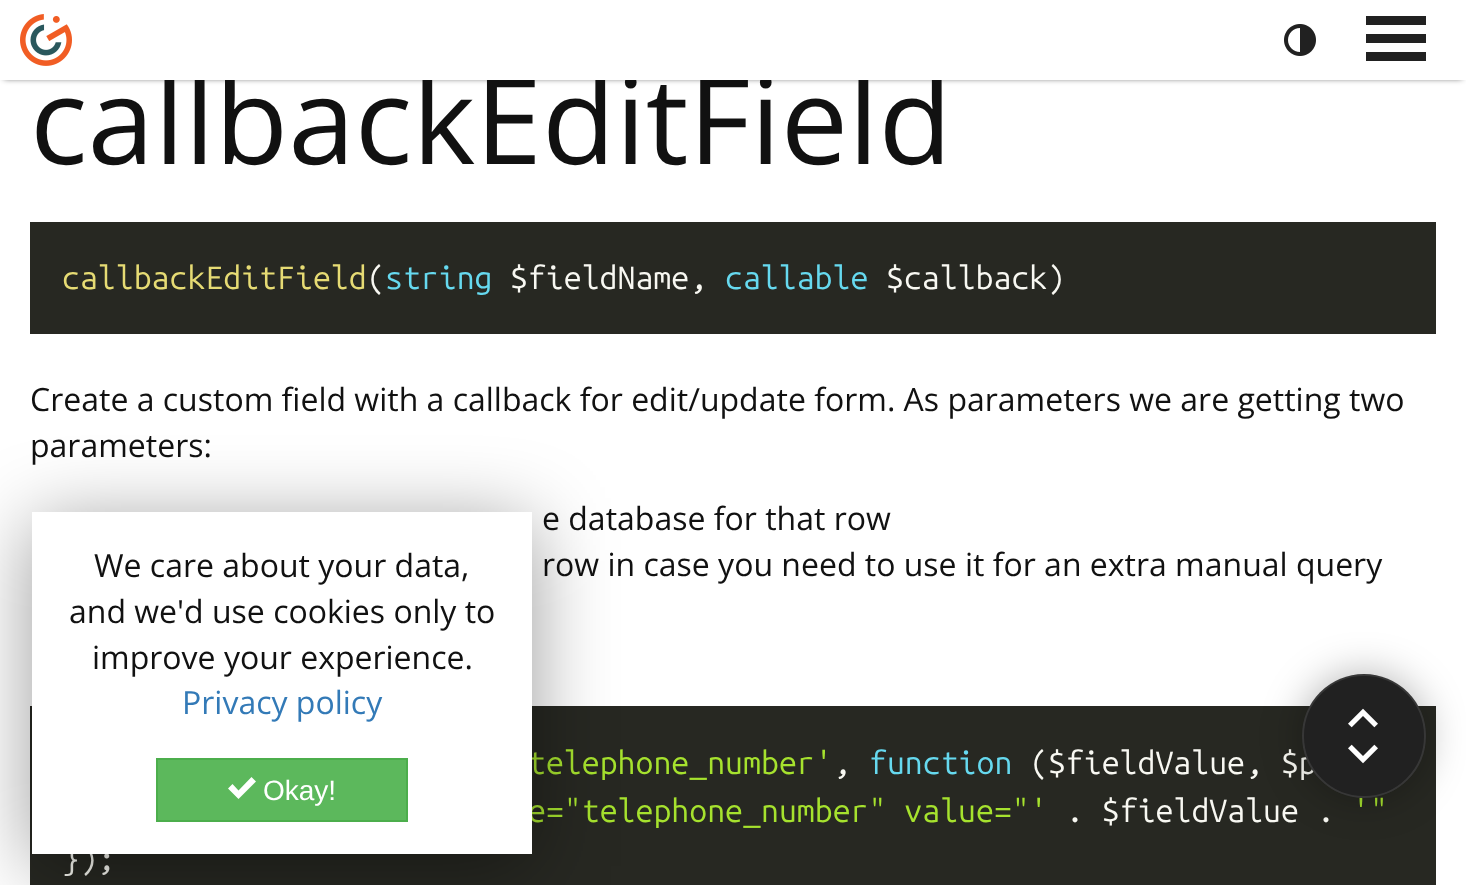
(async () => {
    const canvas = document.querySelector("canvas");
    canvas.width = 1466;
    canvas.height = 885;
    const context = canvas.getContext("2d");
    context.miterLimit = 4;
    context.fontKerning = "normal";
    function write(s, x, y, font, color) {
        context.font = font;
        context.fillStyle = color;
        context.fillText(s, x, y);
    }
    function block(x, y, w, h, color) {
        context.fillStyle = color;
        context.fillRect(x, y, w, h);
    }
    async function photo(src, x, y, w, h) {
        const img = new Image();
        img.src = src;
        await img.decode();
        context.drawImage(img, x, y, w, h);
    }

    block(0, 0, 1466, 885, "rgb(255, 255, 255)");
    context.fillStyle = "rgba(0, 0, 0, 0.8)";
    context.filter = "blur(3px)";
    context.beginPath();
    context.rect(4, 6, 1458, 72);
    context.fill();
    context.filter = "none";
    write("callbackEditField", 30, 164, "120px Open Sans", "rgb(17, 17, 17)");
    block(0, 0, 1466, 80, "rgb(255, 255, 255)");
    await photo("media/1.png", 20, 14, 52, 52);
    await photo("media/2.png", 1284, 24, 32, 32);
    block(1366, 16, 60, 9, "rgb(33, 33, 33)");
    block(1366, 34, 60, 9, "rgb(33, 33, 33)");
    block(1366, 52, 60, 9, "rgb(33, 33, 33)");
    block(30, 222, 1406, 112, "rgb(39, 40, 34)");
    write("callbackEditField", 62, 289, "32px Ubuntu Mono", "rgb(230, 219, 116)");
    write("(", 367, 289, "32px Ubuntu Mono", "rgb(248, 248, 242)");
    write("string", 385, 289, "32px Ubuntu Mono", "rgb(102, 217, 239)");
    write("$fieldName,", 510, 289, "32px Ubuntu Mono", "rgb(248, 248, 242)");
    write("callable", 725, 289, "32px Ubuntu Mono", "rgb(102, 217, 239)");
    write("$callback)", 886, 289, "32px Ubuntu Mono", "rgb(248, 248, 242)");
    write("Create a custom field with a callback for edit/update form. As parameters we are getting two", 30, 411, "32px Open Sans", "rgb(17, 17, 17)");
    write("parameters:", 30, 457, "32px Open Sans", "rgb(17, 17, 17)");
    write("e database for that row", 542, 530, "32px Open Sans", "rgb(17, 17, 17)");
    write("row in case you need to use it for an extra manual query", 542, 576, "32px Open Sans", "rgb(17, 17, 17)");
    block(30, 706, 1406, 179, "rgb(39, 40, 34)");
    write("telephone_number'", 528, 774, "32px Ubuntu Mono", "rgb(166, 226, 46)");
    write(",", 833, 774, "32px Ubuntu Mono", "rgb(248, 248, 242)");
    write("function", 869, 774, "32px Ubuntu Mono", "rgb(102, 217, 239)");
    write("($fieldValue, $p", 1030, 774, "32px Ubuntu Mono", "rgb(248, 248, 242)");
    write("e=\"telephone_number\" value=\"'", 528, 822, "32px Ubuntu Mono", "rgb(166, 226, 46)");
    write(". $fieldValue .", 1066, 822, "32px Ubuntu Mono", "rgb(248, 248, 242)");
    write("'\"", 1352, 822, "32px Ubuntu Mono", "rgb(166, 226, 46)");
    write("});", 62, 870, "32px Ubuntu Mono", "rgb(248, 248, 242)");
    context.fillStyle = "rgba(0, 0, 0, 0.4)";
    context.filter = "blur(40px)";
    context.beginPath();
    context.rect(32, 524, 500, 342);
    context.fill();
    context.filter = "none";
    block(32, 512, 500, 342, "rgb(255, 255, 255)");
    write("We care about your data,", 94, 577, "32px Open Sans", "rgb(17, 17, 17)");
    write("and we'd use cookies only to", 69, 623, "32px Open Sans", "rgb(17, 17, 17)");
    write("improve your experience.", 92, 669, "32px Open Sans", "rgb(17, 17, 17)");
    write("Privacy policy", 182, 714, "32px Open Sans", "rgb(51, 122, 183)");
    context.fillStyle = "rgb(92, 184, 92)";
    context.beginPath();
    context.rect(157, 759, 250, 62);
    context.fill();
    context.strokeStyle = "rgb(76, 174, 76)";
    context.lineWidth = 2;
    context.stroke();
    context.fillStyle = "rgb(255, 255, 255)";
    context.beginPath();
    context.moveTo(251.5, 777);
    context.lineTo(238.5, 790.5);
    context.lineTo(232.5, 784);
    context.lineTo(228, 788.5);
    context.lineTo(238.5, 799);
    context.lineTo(256, 781.5);
    context.closePath();
    context.fill();
    write("Okay!", 263, 800, "28px Liberation Sans", "rgb(255, 255, 255)");
    context.fillStyle = "rgba(0, 0, 0, 0.3)";
    context.filter = "blur(20px)";
    context.beginPath();
    context.roundRect(1302, 674, 124, 124, 62);
    context.fill();
    context.filter = "none";
    context.fillStyle = "rgb(33, 33, 33)";
    context.beginPath();
    context.arc(1364, 736, 62, 0, Math.PI * 2);
    context.fill();
    context.beginPath();
    context.arc(1364, 736, 61, 0, Math.PI * 2);
    context.strokeStyle = "rgba(255, 255, 255, 0.1)";
    context.stroke();
    await photo("media/3.png", 1348, 708, 30, 20);
    await photo("media/4.png", 1348, 744, 30, 20);
})();
